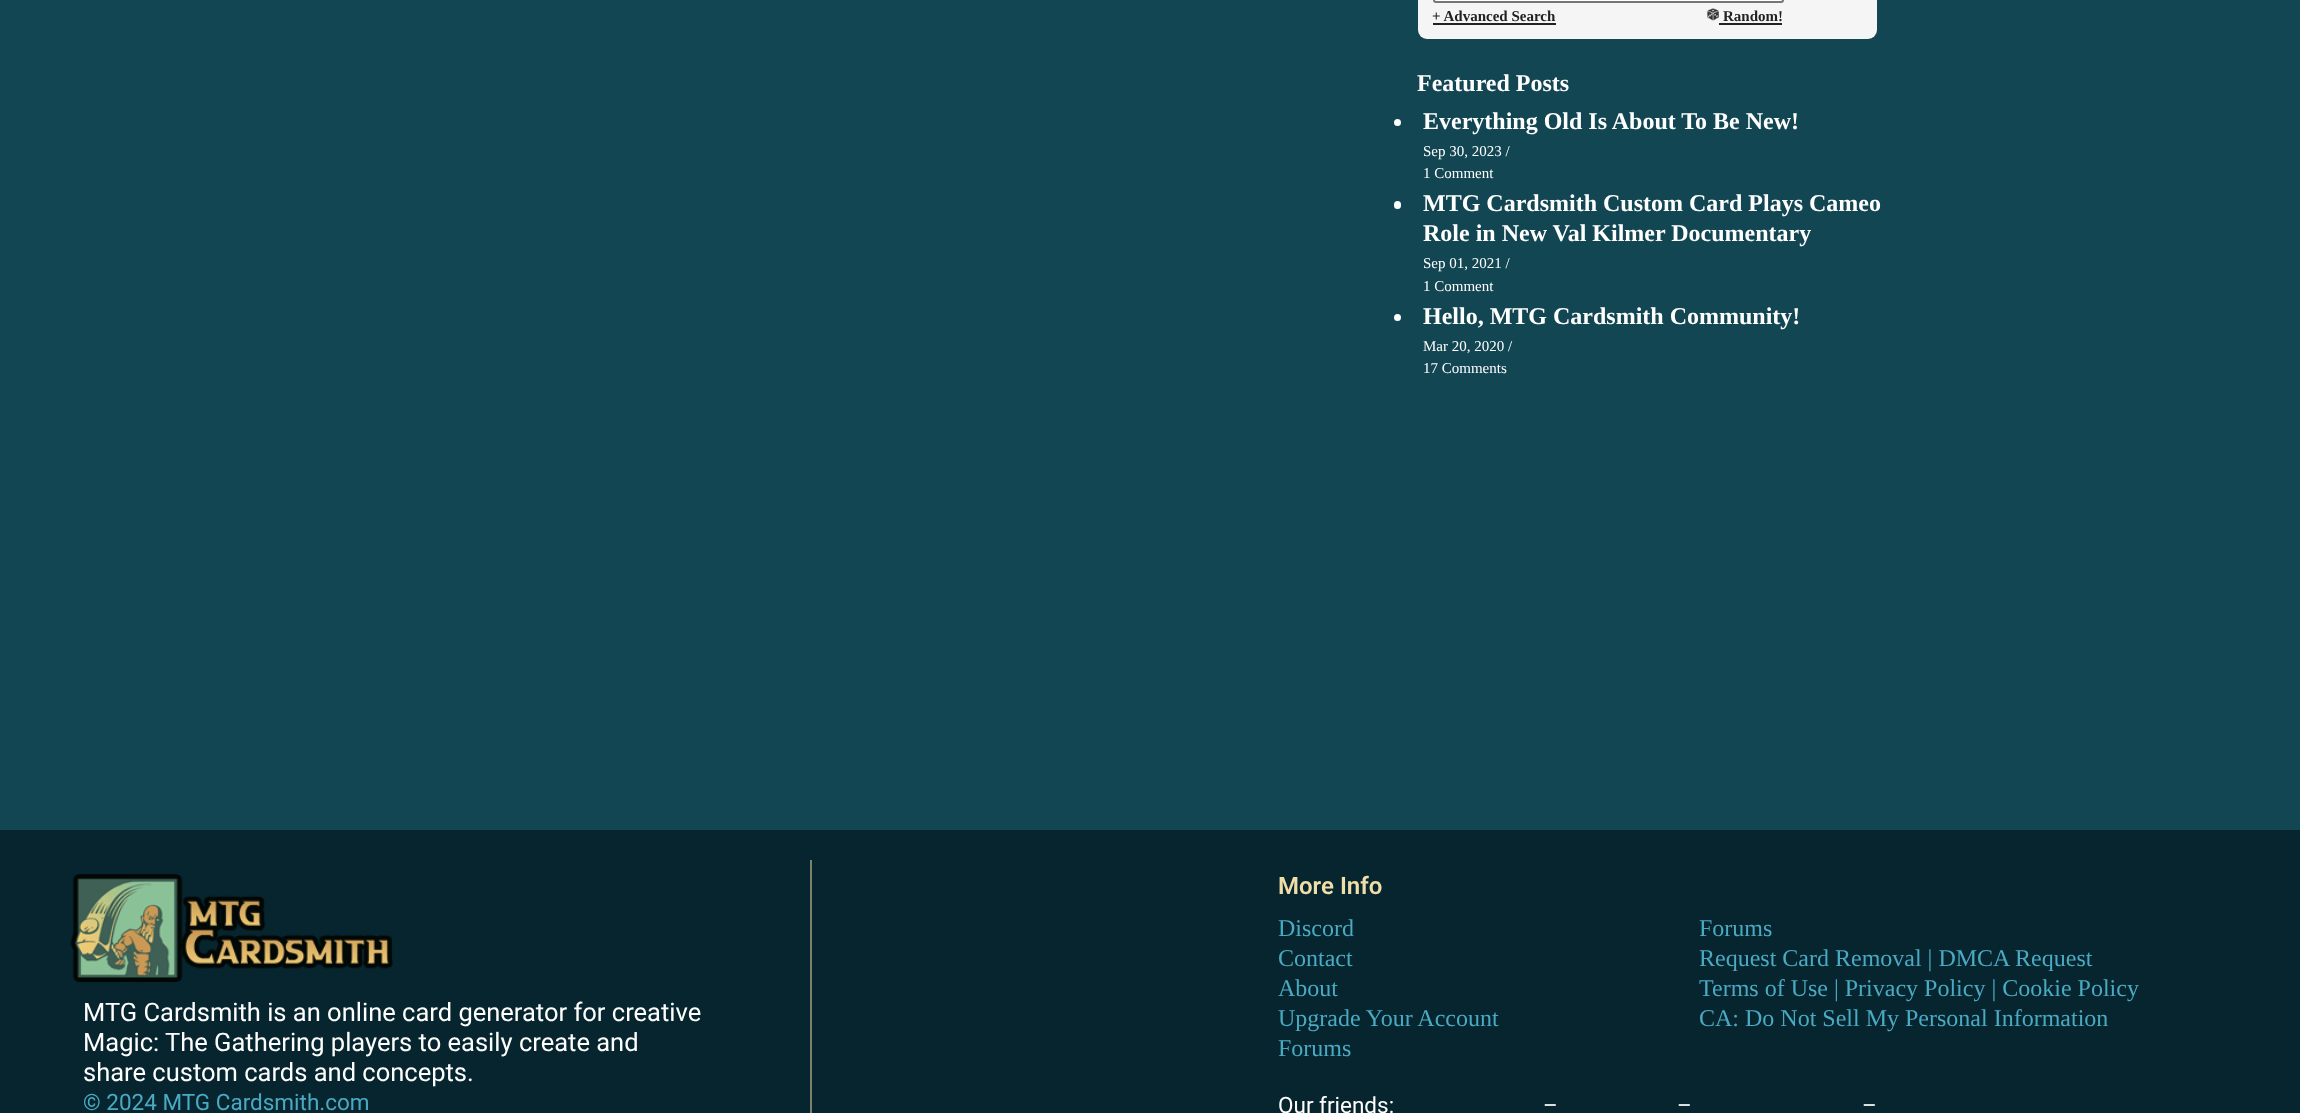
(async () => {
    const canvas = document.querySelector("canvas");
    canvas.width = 2300;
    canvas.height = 1113;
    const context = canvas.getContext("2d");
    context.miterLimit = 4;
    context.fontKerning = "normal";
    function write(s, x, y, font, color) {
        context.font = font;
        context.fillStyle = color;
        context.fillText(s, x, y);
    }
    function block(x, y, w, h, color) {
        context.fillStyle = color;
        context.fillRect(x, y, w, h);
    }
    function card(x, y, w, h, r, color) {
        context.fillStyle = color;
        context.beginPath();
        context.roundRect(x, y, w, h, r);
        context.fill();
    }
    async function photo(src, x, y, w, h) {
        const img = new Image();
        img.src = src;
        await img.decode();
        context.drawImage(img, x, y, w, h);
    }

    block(0, 0, 2300, 1113, "rgb(19, 70, 83)");
    card(1418, -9, 459, 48, 9, "rgb(245, 245, 245)");
    context.fillStyle = "rgb(255, 255, 255)";
    context.beginPath();
    context.roundRect(1434, -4, 349, 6, 2);
    context.fill();
    context.strokeStyle = "rgb(118, 118, 118)";
    context.lineWidth = 2;
    context.stroke();
    write("+ Advanced Search", 1432, 21, "bold 15px Liberation Serif", "rgb(34, 34, 34)");
    block(1433, 23, 123, 2, "rgb(34, 34, 34)");
    await photo("media/1.png", 1707, 8, 12, 13);
    write("Random!", 1723, 21, "bold 15px Liberation Serif", "rgb(34, 34, 34)");
    block(1719, 23, 63, 2, "rgb(34, 34, 34)");
    write("Featured Posts", 1417, 91, "bold 24px Liberation Serif", "rgb(255, 255, 255)");
    context.beginPath();
    context.arc(1397.5, 122.5, 3.5, 0, Math.PI * 2);
    context.fill();
    write("Everything Old Is About To Be New!", 1423, 129, "bold 24px Liberation Serif", "rgb(255, 255, 255)");
    write("Sep 30, 2023 /", 1423, 156, "15px Liberation Serif", "rgb(255, 255, 255)");
    write("1 Comment", 1423, 178, "15px Liberation Serif", "rgb(255, 255, 255)");
    card(1394, 201, 7, 8, 3.5, "rgb(255, 255, 255)");
    write("MTG Cardsmith Custom Card Plays Cameo", 1423, 211, "bold 24px Liberation Serif", "rgb(255, 255, 255)");
    write("Role in New Val Kilmer Documentary", 1423, 241, "bold 24px Liberation Serif", "rgb(255, 255, 255)");
    write("Sep 01, 2021 /", 1423, 268, "15px Liberation Serif", "rgb(255, 255, 255)");
    write("1 Comment", 1423, 291, "15px Liberation Serif", "rgb(255, 255, 255)");
    context.beginPath();
    context.arc(1397.5, 317.5, 3.5, 0, Math.PI * 2);
    context.fill();
    write("Hello, MTG Cardsmith Community!", 1423, 324, "bold 24px Liberation Serif", "rgb(255, 255, 255)");
    write("Mar 20, 2020 /", 1423, 351, "15px Liberation Serif", "rgb(255, 255, 255)");
    write("17 Comments", 1423, 373, "15px Liberation Serif", "rgb(255, 255, 255)");
    block(0, 830, 2300, 283, "rgb(7, 37, 47)");
    block(810, 860, 2, 253, "rgb(124, 130, 108)");
    await photo("media/2.png", 70, 874, 323, 108);
    write("MTG Cardsmith is an online card generator for creative", 83, 1021, "25.5px Roboto", "rgb(255, 255, 255)");
    write("Magic: The Gathering players to easily create and", 83, 1051, "25.5px Roboto", "rgb(255, 255, 255)");
    write("share custom cards and concepts.", 83, 1081, "25.5px Roboto", "rgb(255, 255, 255)");
    write("© 2024 MTG Cardsmith.com", 83, 1110, "22.5px Roboto", "rgb(73, 170, 195)");
    write("More Info", 1278, 894, "600 24px Roboto", "rgb(240, 222, 168)");
    write("Discord", 1278, 936, "24px Liberation Serif", "rgb(73, 170, 195)");
    write("Contact", 1278, 966, "24px Liberation Serif", "rgb(73, 170, 195)");
    write("About", 1278, 996, "24px Liberation Serif", "rgb(73, 170, 195)");
    write("Upgrade Your Account", 1278, 1026, "24px Liberation Serif", "rgb(73, 170, 195)");
    write("Forums", 1278, 1056, "24px Liberation Serif", "rgb(73, 170, 195)");
    write("Forums", 1699, 936, "24px Liberation Serif", "rgb(73, 170, 195)");
    write("Request Card Removal | DMCA Request", 1699, 966, "24px Liberation Serif", "rgb(73, 170, 195)");
    write("Terms of Use | Privacy Policy | Cookie Policy", 1699, 996, "24px Liberation Serif", "rgb(73, 170, 195)");
    write("CA: Do Not Sell My Personal Information", 1699, 1026, "24px Liberation Serif", "rgb(73, 170, 195)");
    write("Our friends:", 1278, 1113, "22.5px Roboto", "rgb(255, 255, 255)");
    write("–", 1543, 1113, "22.5px Roboto", "rgb(255, 255, 255)");
    write("–", 1677, 1113, "22.5px Roboto", "rgb(255, 255, 255)");
    write("–", 1862, 1113, "22.5px Roboto", "rgb(255, 255, 255)");
})();
